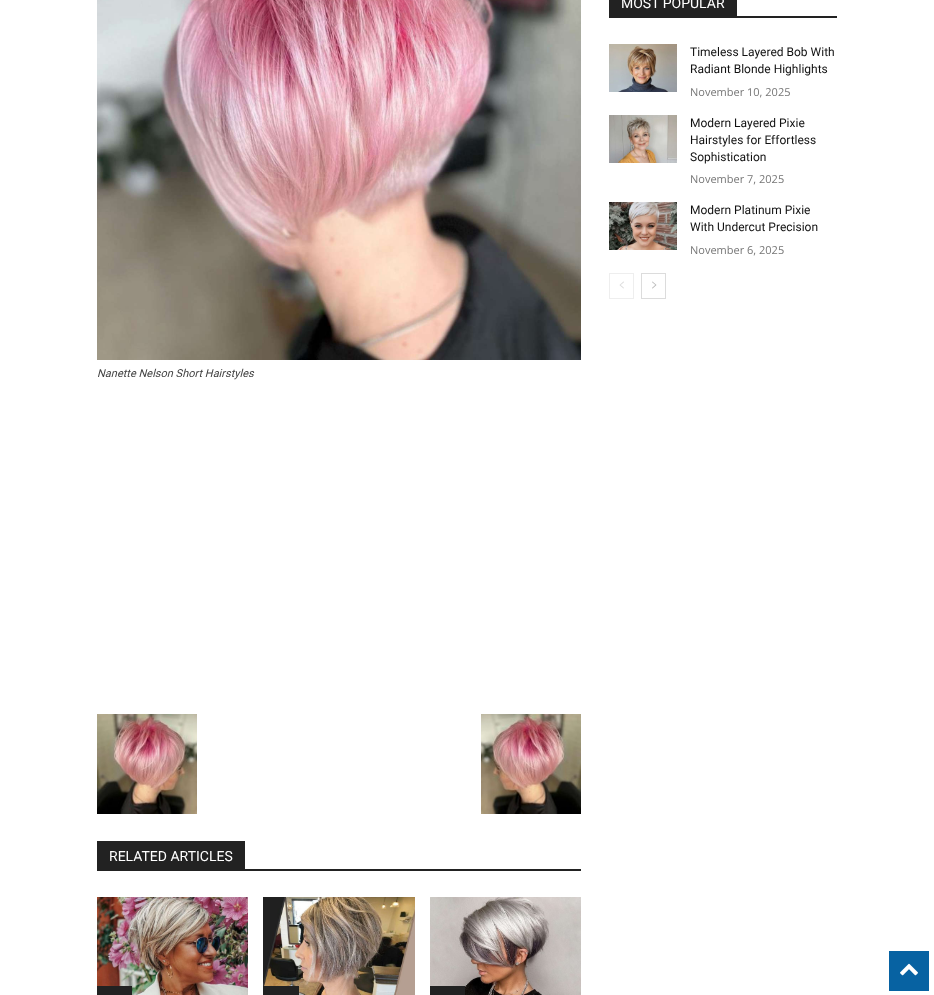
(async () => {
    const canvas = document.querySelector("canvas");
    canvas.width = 934;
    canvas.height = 995;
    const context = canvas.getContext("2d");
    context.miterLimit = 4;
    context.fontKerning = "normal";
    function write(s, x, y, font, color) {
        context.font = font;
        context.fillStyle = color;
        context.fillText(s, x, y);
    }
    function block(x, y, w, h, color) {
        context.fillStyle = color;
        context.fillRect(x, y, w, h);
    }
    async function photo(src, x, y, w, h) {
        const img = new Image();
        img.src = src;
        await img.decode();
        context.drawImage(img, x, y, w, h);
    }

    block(0, 0, 934, 995, "rgb(255, 255, 255)");
    block(609, 16, 228, 2, "rgb(34, 34, 34)");
    block(609, 0, 128, 16, "rgb(34, 34, 34)");
    write("MOST POPULAR", 621, 8, "14px Roboto", "rgb(255, 255, 255)");
    await photo("media/1.png", 609, 44, 68, 48);
    write("Timeless Layered Bob With", 690, 56, "12px Roboto", "rgb(17, 17, 17)");
    write("Radiant Blonde Highlights", 690, 73, "12px Roboto", "rgb(17, 17, 17)");
    write("November 10, 2025", 690, 96, "11px Open Sans", "rgb(118, 118, 118)");
    await photo("media/2.png", 609, 115, 68, 48);
    write("Modern Layered Pixie", 690, 127, "12px Roboto", "rgb(17, 17, 17)");
    write("Hairstyles for Effortless", 690, 144, "12px Roboto", "rgb(17, 17, 17)");
    write("Sophistication", 690, 161, "12px Roboto", "rgb(17, 17, 17)");
    write("November 7, 2025", 690, 183, "11px Open Sans", "rgb(118, 118, 118)");
    await photo("media/3.png", 609, 202, 68, 48);
    write("Modern Platinum Pixie", 690, 214, "12px Roboto", "rgb(17, 17, 17)");
    write("With Undercut Precision", 690, 231, "12px Roboto", "rgb(17, 17, 17)");
    write("November 6, 2025", 690, 254, "11px Open Sans", "rgb(118, 118, 118)");
    context.strokeStyle = "rgb(238, 238, 238)";
    context.strokeRect(609.5, 273.5, 24, 25);
    await photo("media/4.png", 619, 281, 5, 8);
    context.strokeStyle = "rgb(220, 220, 220)";
    context.strokeRect(641.5, 273.5, 24, 25);
    await photo("media/5.png", 652, 281, 5, 8);
    await photo("media/6.png", 97, 0, 484, 360);
    write("Nanette Nelson Short Hairstyles", 97, 377, "italic 11px Roboto", "rgb(68, 68, 68)");
    await photo("media/7.png", 97, 714, 100, 100);
    await photo("media/8.png", 481, 714, 100, 100);
    block(97, 869, 484, 2, "rgb(34, 34, 34)");
    block(97, 841, 148, 28, "rgb(34, 34, 34)");
    write("RELATED ARTICLES", 109, 861, "14px Roboto", "rgb(255, 255, 255)");
    await photo("media/9.png", 97, 897, 151, 98);
    block(97, 986, 35, 9, "rgb(34, 34, 34)");
    await photo("media/10.png", 263, 897, 152, 98);
    block(263, 986, 36, 9, "rgb(34, 34, 34)");
    await photo("media/11.png", 430, 897, 151, 98);
    block(430, 986, 35, 9, "rgb(34, 34, 34)");
    block(889, 951, 40, 40, "rgb(7, 98, 162)");
    await photo("media/12.png", 900, 963, 18, 13);
})();
